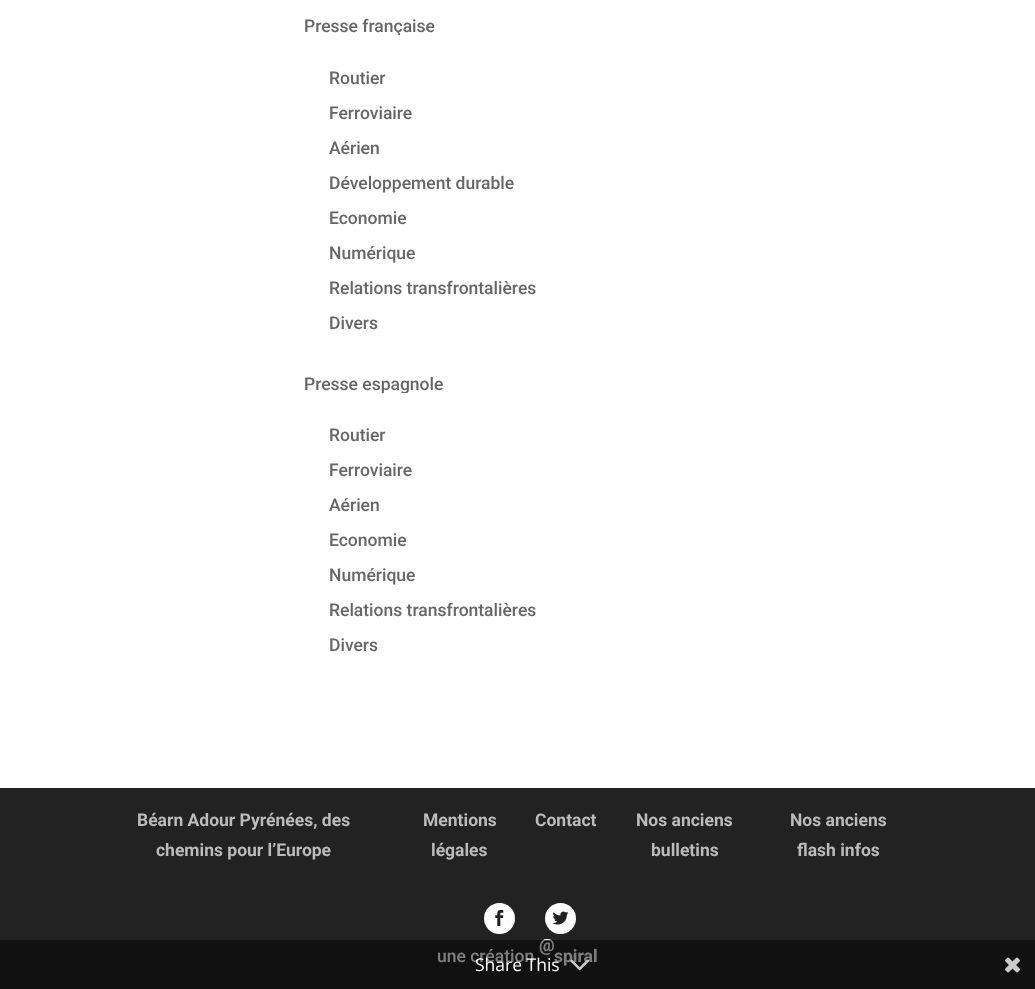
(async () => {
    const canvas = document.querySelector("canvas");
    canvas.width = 1035;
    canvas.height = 989;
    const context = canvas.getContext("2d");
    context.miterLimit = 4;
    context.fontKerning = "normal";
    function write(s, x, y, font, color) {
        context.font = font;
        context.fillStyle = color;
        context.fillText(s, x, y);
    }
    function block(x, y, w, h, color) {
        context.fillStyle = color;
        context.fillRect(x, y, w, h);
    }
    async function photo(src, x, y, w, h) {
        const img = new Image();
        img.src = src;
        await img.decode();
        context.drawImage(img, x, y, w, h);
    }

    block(0, 0, 1035, 989, "rgb(255, 255, 255)");
    write("Presse française", 304, 32, "500 17.5px Roboto", "rgb(102, 102, 102)");
    block(397, 35, 3, 1, "rgb(255, 255, 255)");
    write("Routier", 329, 84, "500 17.5px Roboto", "rgb(102, 102, 102)");
    write("Ferroviaire", 329, 119, "500 17.5px Roboto", "rgb(102, 102, 102)");
    write("Aérien", 329, 154, "500 17.5px Roboto", "rgb(102, 102, 102)");
    write("Développement durable", 329, 189, "500 17.5px Roboto", "rgb(102, 102, 102)");
    write("Economie", 329, 224, "500 17.5px Roboto", "rgb(102, 102, 102)");
    write("Numérique", 329, 259, "500 17.5px Roboto", "rgb(102, 102, 102)");
    write("Relations transfrontalières", 329, 294, "500 17.5px Roboto", "rgb(102, 102, 102)");
    write("Divers", 329, 329, "500 17.5px Roboto", "rgb(102, 102, 102)");
    write("Presse espagnole", 304, 390, "500 17.5px Roboto", "rgb(102, 102, 102)");
    block(381, 393, 26, 1, "rgb(255, 255, 255)");
    write("Routier", 329, 441, "500 17.5px Roboto", "rgb(102, 102, 102)");
    write("Ferroviaire", 329, 476, "500 17.5px Roboto", "rgb(102, 102, 102)");
    write("Aérien", 329, 511, "500 17.5px Roboto", "rgb(102, 102, 102)");
    write("Economie", 329, 546, "500 17.5px Roboto", "rgb(102, 102, 102)");
    write("Numérique", 329, 581, "500 17.5px Roboto", "rgb(102, 102, 102)");
    write("Relations transfrontalières", 329, 616, "500 17.5px Roboto", "rgb(102, 102, 102)");
    write("Divers", 329, 651, "500 17.5px Roboto", "rgb(102, 102, 102)");
    block(0, 788, 1035, 201, "rgb(34, 34, 34)");
    write("Béarn Adour Pyrénées, des", 137, 826, "bold 17.5px Roboto", "rgb(187, 187, 187)");
    write("chemins pour l’Europe", 156, 856, "bold 17.5px Roboto", "rgb(187, 187, 187)");
    write("Mentions", 423, 826, "bold 17.5px Roboto", "rgb(187, 187, 187)");
    write("légales", 431, 856, "bold 17.5px Roboto", "rgb(187, 187, 187)");
    write("Contact", 535, 826, "bold 17.5px Roboto", "rgb(187, 187, 187)");
    write("Nos anciens", 636, 826, "bold 17.5px Roboto", "rgb(187, 187, 187)");
    write("bulletins", 651, 856, "bold 17.5px Roboto", "rgb(187, 187, 187)");
    write("Nos anciens", 790, 826, "bold 17.5px Roboto", "rgb(187, 187, 187)");
    write("flash infos", 797, 856, "bold 17.5px Roboto", "rgb(187, 187, 187)");
    context.fillStyle = "rgb(255, 255, 255)";
    context.beginPath();
    context.arc(499.5, 918.5, 15.5, 0, Math.PI * 2);
    context.fill();
    await photo("media/1.png", 495, 910, 9, 16);
    context.beginPath();
    context.arc(560.5, 918.5, 15.5, 0, Math.PI * 2);
    context.fill();
    await photo("media/2.png", 552, 911, 17, 14);
    write("une création", 437, 962, "500 17.5px Roboto", "rgb(255, 255, 255)");
    write("@", 539, 951, "bold 17.5px Roboto", "rgb(255, 255, 255)");
    write("spiral", 554, 962, "bold 17.5px Roboto", "rgb(255, 255, 255)");
    block(0, 940, 1035, 49, "rgba(0, 0, 0, 0.5)");
    write("Share This", 475, 971, "17.5px Open Sans", "rgb(255, 255, 255)");
    await photo("media/3.png", 570, 959, 19, 12);
    await photo("media/4.png", 1005, 957, 15, 16);
})();
